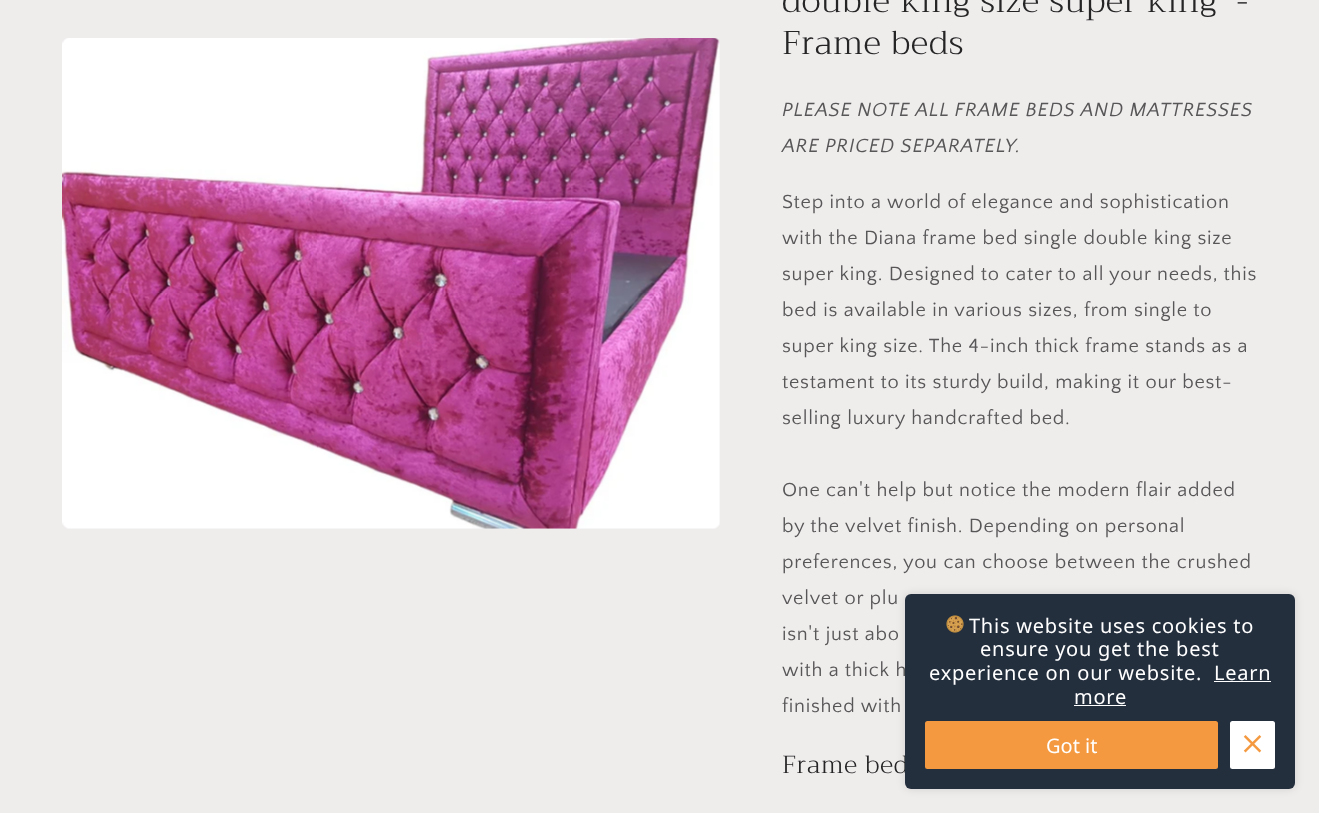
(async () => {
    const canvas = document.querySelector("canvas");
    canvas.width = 1319;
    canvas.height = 813;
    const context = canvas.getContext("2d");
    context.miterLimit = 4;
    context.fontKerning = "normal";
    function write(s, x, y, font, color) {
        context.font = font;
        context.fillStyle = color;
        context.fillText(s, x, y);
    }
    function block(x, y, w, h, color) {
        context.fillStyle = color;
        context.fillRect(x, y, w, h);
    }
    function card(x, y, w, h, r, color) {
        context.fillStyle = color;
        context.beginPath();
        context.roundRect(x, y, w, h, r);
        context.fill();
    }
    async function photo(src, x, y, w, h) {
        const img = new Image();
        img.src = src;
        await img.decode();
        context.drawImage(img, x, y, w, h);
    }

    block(0, 0, 1319, 813, "rgb(239, 236, 236)");
    await photo("media/1.png", 62, 38, 658, 491);
    context.letterSpacing = "0.8px";
    write("double king size super king  -", 782, 12, "300 33px Trirong", "rgb(37, 37, 37)");
    write("Frame beds", 782, 54, "300 33px Trirong", "rgb(37, 37, 37)");
    context.letterSpacing = "0.75px";
    write("PLEASE NOTE ALL FRAME BEDS AND MATTRESSES", 782, 116, "italic 20px Quattrocento Sans", "rgb(88, 87, 87)");
    write("ARE PRICED SEPARATELY.", 782, 152, "italic 20px Quattrocento Sans", "rgb(88, 87, 87)");
    write("Step into a world of elegance and sophistication", 782, 208, "20px Quattrocento Sans", "rgb(88, 87, 87)");
    write("with the Diana frame bed single double king size", 782, 244, "20px Quattrocento Sans", "rgb(88, 87, 87)");
    write("super king. Designed to cater to all your needs, this", 782, 280, "20px Quattrocento Sans", "rgb(88, 87, 87)");
    write("bed is available in various sizes, from single to", 782, 316, "20px Quattrocento Sans", "rgb(88, 87, 87)");
    write("super king size. The 4-inch thick frame stands as a", 782, 352, "20px Quattrocento Sans", "rgb(88, 87, 87)");
    write("testament to its sturdy build, making it our best-", 782, 388, "20px Quattrocento Sans", "rgb(88, 87, 87)");
    write("selling luxury handcrafted bed.", 782, 424, "20px Quattrocento Sans", "rgb(88, 87, 87)");
    write("One can't help but notice the modern flair added", 782, 496, "20px Quattrocento Sans", "rgb(88, 87, 87)");
    write("by the velvet finish. Depending on personal", 782, 532, "20px Quattrocento Sans", "rgb(88, 87, 87)");
    write("preferences, you can choose between the crushed", 782, 568, "20px Quattrocento Sans", "rgb(88, 87, 87)");
    write("velvet or plu", 782, 604, "20px Quattrocento Sans", "rgb(88, 87, 87)");
    write("isn't just abo", 782, 640, "20px Quattrocento Sans", "rgb(88, 87, 87)");
    write("with a thick h", 782, 676, "20px Quattrocento Sans", "rgb(88, 87, 87)");
    write("finished with", 782, 712, "20px Quattrocento Sans", "rgb(88, 87, 87)");
    context.letterSpacing = "0.8px";
    write("Frame bed", 782, 773, "300 24.75px Trirong", "rgb(37, 37, 37)");
    card(905, 594, 390, 195, 6, "rgb(36, 47, 62)");
    context.save();
    context.beginPath();
    context.moveTo(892, 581);
    context.lineTo(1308, 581);
    context.lineTo(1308, 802);
    context.lineTo(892, 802);
    context.closePath();
    context.moveTo(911, 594);
    context.lineTo(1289, 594);
    context.bezierCurveTo(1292.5, 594, 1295, 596.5, 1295, 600);
    context.lineTo(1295, 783);
    context.bezierCurveTo(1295, 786.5, 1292.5, 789, 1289, 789);
    context.lineTo(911, 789);
    context.bezierCurveTo(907.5, 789, 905, 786.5, 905, 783);
    context.lineTo(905, 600);
    context.bezierCurveTo(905, 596.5, 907.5, 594, 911, 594);
    context.closePath();
    context.clip("evenodd");
    context.fillStyle = "rgba(0, 0, 0, 0.12)";
    context.filter = "blur(4px)";
    context.beginPath();
    context.roundRect(905, 594, 390, 195, 6);
    context.fill();
    context.filter = "none";
    context.restore();
    await photo("media/2.png", 946, 615, 18, 18);
    context.letterSpacing = "0.75px";
    write("This website uses cookies to", 969, 633, "20px Noto Sans", "rgb(255, 255, 255)");
    write("ensure you get the best", 980, 656, "20px Noto Sans", "rgb(255, 255, 255)");
    write("experience on our website.", 929, 680, "20px Noto Sans", "rgb(255, 255, 255)");
    write("Learn", 1214, 680, "20px Noto Sans", "rgb(255, 255, 255)");
    block(1214, 681, 57, 1, "rgb(255, 255, 255)");
    write("more", 1074, 704, "20px Noto Sans", "rgb(255, 255, 255)");
    block(1074, 705, 52, 1, "rgb(255, 255, 255)");
    card(925, 721, 293, 48, 2.5, "rgb(244, 153, 63)");
    context.letterSpacing = "0px";
    write("Got it", 1046, 753, "20px Noto Sans", "rgb(255, 255, 255)");
    card(1230, 721, 45, 48, 2.5, "rgb(255, 255, 255)");
    await photo("media/3.png", 1243, 735, 19, 18);
})();
